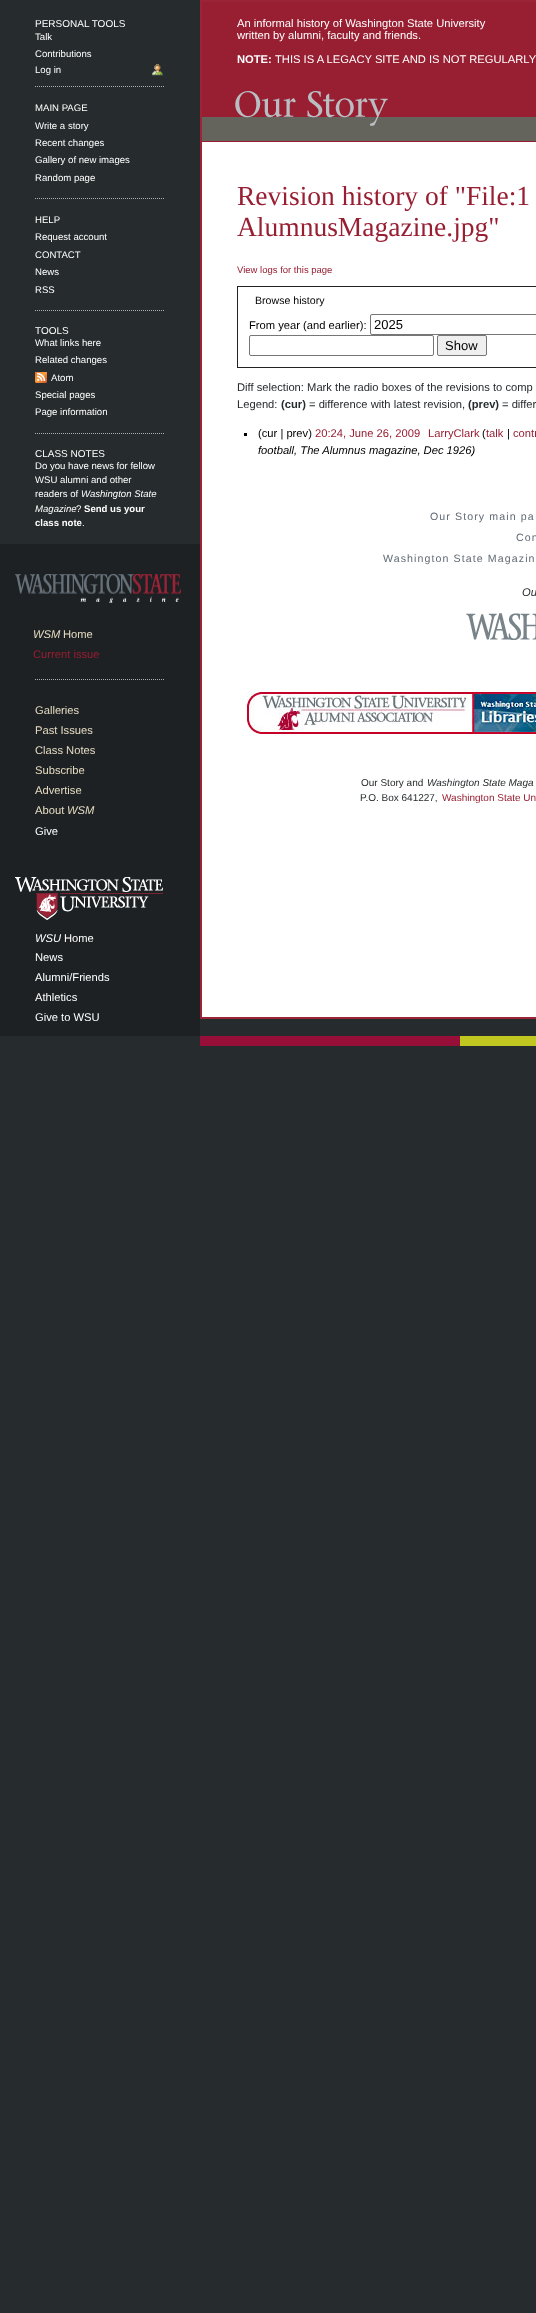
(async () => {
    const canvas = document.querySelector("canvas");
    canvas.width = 536;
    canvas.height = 2313;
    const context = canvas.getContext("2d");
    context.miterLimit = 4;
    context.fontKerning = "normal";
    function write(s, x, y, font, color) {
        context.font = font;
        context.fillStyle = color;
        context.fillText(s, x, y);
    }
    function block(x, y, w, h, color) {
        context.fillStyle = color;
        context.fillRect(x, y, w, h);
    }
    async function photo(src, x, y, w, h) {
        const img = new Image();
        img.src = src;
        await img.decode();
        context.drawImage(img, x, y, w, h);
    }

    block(0, 0, 536, 2313, "rgb(38, 43, 45)");
    write("PERSONAL TOOLS", 35, 27, "10px Liberation Sans", "rgb(255, 255, 255)");
    write("Talk", 35, 40, "9.6px Liberation Sans", "rgb(255, 255, 255)");
    write("Contributions", 35, 57, "9.6px Liberation Sans", "rgb(255, 255, 255)");
    await photo("media/1.png", 152, 64, 11, 12);
    write("Log in", 35, 73, "9.6px Liberation Sans", "rgb(255, 255, 255)");
    context.beginPath();
    context.moveTo(35, 86.5);
    context.lineTo(165, 86.5);
    context.strokeStyle = "rgb(170, 177, 180)";
    context.setLineDash([1, 1]);
    context.stroke();
    write("MAIN PAGE", 35, 111, "9.6px Liberation Sans", "rgb(255, 255, 255)");
    write("Write a story", 35, 129, "9.6px Liberation Sans", "rgb(255, 255, 255)");
    write("Recent changes", 35, 146, "9.6px Liberation Sans", "rgb(255, 255, 255)");
    write("Gallery of new images", 35, 163, "9.6px Liberation Sans", "rgb(255, 255, 255)");
    write("Random page", 35, 181, "9.6px Liberation Sans", "rgb(255, 255, 255)");
    context.beginPath();
    context.moveTo(35, 198.5);
    context.lineTo(165, 198.5);
    context.stroke();
    write("HELP", 35, 223, "9.6px Liberation Sans", "rgb(255, 255, 255)");
    write("Request account", 35, 240, "9.6px Liberation Sans", "rgb(255, 255, 255)");
    write("CONTACT", 35, 258, "9.6px Liberation Sans", "rgb(255, 255, 255)");
    write("News", 35, 275, "9.6px Liberation Sans", "rgb(255, 255, 255)");
    write("RSS", 35, 293, "9.6px Liberation Sans", "rgb(255, 255, 255)");
    context.beginPath();
    context.moveTo(35, 310.5);
    context.lineTo(165, 310.5);
    context.stroke();
    write("TOOLS", 35, 334, "10px Liberation Sans", "rgb(255, 255, 255)");
    write("What links here", 35, 346, "9.6px Liberation Sans", "rgb(255, 255, 255)");
    write("Related changes", 35, 363, "9.6px Liberation Sans", "rgb(255, 255, 255)");
    await photo("media/2.png", 35, 372, 12, 11);
    write("Atom", 51, 381, "9.6px Liberation Sans", "rgb(255, 255, 255)");
    write("Special pages", 35, 398, "9.6px Liberation Sans", "rgb(255, 255, 255)");
    write("Page information", 35, 415, "9.6px Liberation Sans", "rgb(255, 255, 255)");
    context.beginPath();
    context.moveTo(35, 433.5);
    context.lineTo(165, 433.5);
    context.stroke();
    write("CLASS NOTES", 35, 457, "10px Liberation Sans", "rgb(255, 255, 255)");
    write("Do you have news for fellow", 35, 469, "9.6px Liberation Sans", "rgb(255, 255, 255)");
    write("WSU alumni and other", 35, 483, "9.6px Liberation Sans", "rgb(255, 255, 255)");
    write("readers of", 35, 497, "9.6px Liberation Sans", "rgb(255, 255, 255)");
    write("Washington State", 81, 497, "italic 9.6px Liberation Sans", "rgb(255, 255, 255)");
    write("Magazine", 35, 512, "italic 9.6px Liberation Sans", "rgb(255, 255, 255)");
    write("?", 76, 512, "9.6px Liberation Sans", "rgb(255, 255, 255)");
    write("Send us your", 84, 512, "bold 9.6px Liberation Sans", "rgb(255, 255, 255)");
    write("class note", 35, 526, "bold 9.6px Liberation Sans", "rgb(255, 255, 255)");
    write(".", 82, 526, "9.6px Liberation Sans", "rgb(255, 255, 255)");
    block(0, 544, 200, 492, "rgb(29, 33, 36)");
    await photo("media/3.png", 15, 574, 166, 29);
    write("WSM", 33, 638, "italic 11.2px Liberation Sans", "rgb(228, 218, 193)");
    write("Home", 63, 638, "11.2px Liberation Sans", "rgb(228, 218, 193)");
    write("Current issue", 33, 658, "11.2px Liberation Sans", "rgb(152, 30, 50)");
    context.beginPath();
    context.moveTo(35, 679.5);
    context.lineTo(165, 679.5);
    context.stroke();
    write("Galleries", 35, 714, "11.2px Liberation Sans", "rgb(228, 218, 193)");
    write("Past Issues", 35, 734, "11.2px Liberation Sans", "rgb(228, 218, 193)");
    write("Class Notes", 35, 754, "11.2px Liberation Sans", "rgb(228, 218, 193)");
    write("Subscribe", 35, 774, "11.2px Liberation Sans", "rgb(228, 218, 193)");
    write("Advertise", 35, 794, "11.2px Liberation Sans", "rgb(228, 218, 193)");
    write("About", 35, 814, "11.2px Liberation Sans", "rgb(228, 218, 193)");
    write("WSM", 67, 814, "italic 11.2px Liberation Sans", "rgb(228, 218, 193)");
    write("Give", 35, 835, "11.2px Liberation Sans", "rgb(255, 255, 255)");
    await photo("media/4.png", 15, 877, 148, 43);
    write("WSU", 35, 942, "italic 11.2px Liberation Sans", "rgb(255, 255, 255)");
    write("Home", 64, 942, "11.2px Liberation Sans", "rgb(255, 255, 255)");
    write("News", 35, 961, "11.2px Liberation Sans", "rgb(255, 255, 255)");
    write("Alumni/Friends", 35, 981, "11.2px Liberation Sans", "rgb(255, 255, 255)");
    write("Athletics", 35, 1001, "11.2px Liberation Sans", "rgb(255, 255, 255)");
    write("Give to WSU", 35, 1021, "11.2px Liberation Sans", "rgb(255, 255, 255)");
    block(202, 142, 334, 875, "rgb(255, 255, 255)");
    context.strokeStyle = "rgb(155, 36, 55)";
    context.lineWidth = 2;
    context.setLineDash([]);
    context.strokeRect(201, 1, 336, 1017);
    block(202, 2, 334, 140, "rgb(152, 30, 50)");
    write("An informal history of Washington State University", 237, 27, "11.2px Liberation Sans", "rgb(255, 255, 255)");
    write("written by alumni, faculty and friends.", 237, 39, "11.2px Liberation Sans", "rgb(255, 255, 255)");
    write("NOTE:", 237, 63, "bold 11.2px Liberation Sans", "rgb(255, 255, 255)");
    write("THIS IS A LEGACY SITE AND IS NOT REGULARLY", 275, 63, "11.2px Liberation Sans", "rgb(255, 255, 255)");
    block(202, 117, 334, 24, "rgb(101, 100, 92)");
    await photo("media/5.png", 235, 91, 153, 35);
    write("Revision history of \"File:1", 237, 205, "27.5px Liberation Serif", "rgb(152, 30, 50)");
    write("AlumnusMagazine.jpg\"", 237, 236, "27.5px Liberation Serif", "rgb(152, 30, 50)");
    write("View logs for this page", 237, 273, "9.5px Liberation Sans", "rgb(152, 30, 50)");
    context.strokeStyle = "rgb(34, 34, 34)";
    context.lineWidth = 1;
    context.strokeRect(237.5, 286.5, 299, 81);
    write("Browse history", 255, 304, "10.6px Liberation Sans", "rgb(0, 0, 0)");
    write("From year (and earlier):", 249, 329, "11.2px Liberation Sans", "rgb(0, 0, 0)");
    context.beginPath();
    context.roundRect(370.5, 314.5, 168, 20, 1.5);
    context.strokeStyle = "rgb(118, 118, 118)";
    context.stroke();
    write("2025", 374, 329, "13px Liberation Sans", "rgb(0, 0, 0)");
    context.beginPath();
    context.roundRect(249.5, 335.5, 184, 20, 1.5);
    context.stroke();
    context.fillStyle = "rgb(239, 239, 239)";
    context.beginPath();
    context.roundRect(437.5, 335.5, 49, 20, 1.5);
    context.fill();
    context.stroke();
    write("Show", 445, 350, "13px Liberation Sans", "rgb(0, 0, 0)");
    write("Diff selection: Mark the radio boxes of the revisions to comp", 237, 391, "11.2px Liberation Sans", "rgb(38, 43, 45)");
    write("Legend:", 237, 408, "11.2px Liberation Sans", "rgb(38, 43, 45)");
    write("(cur)", 281, 408, "bold 11.2px Liberation Sans", "rgb(38, 43, 45)");
    write("= difference with latest revision,", 309, 408, "11.2px Liberation Sans", "rgb(38, 43, 45)");
    write("(prev)", 468, 408, "bold 11.2px Liberation Sans", "rgb(38, 43, 45)");
    write("= differ", 502, 408, "11.2px Liberation Sans", "rgb(38, 43, 45)");
    block(244, 433, 3, 3, "rgb(0, 0, 0)");
    write("(cur | prev)", 258, 437, "11.2px Liberation Sans", "rgb(0, 0, 0)");
    write("20:24, June 26, 2009", 315, 437, "11.2px Liberation Sans", "rgb(152, 30, 50)");
    write("LarryClark", 428, 437, "11.2px Liberation Sans", "rgb(152, 30, 50)");
    write("(", 482, 437, "11.2px Liberation Sans", "rgb(0, 0, 0)");
    write("talk", 486, 437, "11.2px Liberation Sans", "rgb(152, 30, 50)");
    write("|", 507, 437, "11.2px Liberation Sans", "rgb(0, 0, 0)");
    write("contr", 513, 437, "11.2px Liberation Sans", "rgb(152, 30, 50)");
    write("football, The Alumnus magazine, Dec 1926)", 258, 454, "italic 11.2px Liberation Sans", "rgb(0, 0, 0)");
    context.letterSpacing = "1.1px";
    write("Our Story main pa", 430, 520, "10.6px Liberation Sans", "rgb(96, 106, 116)");
    write("Con", 516, 541, "10.6px Liberation Sans", "rgb(96, 106, 116)");
    write("Washington State Magazin", 383, 562, "10.6px Liberation Sans", "rgb(96, 106, 116)");
    context.letterSpacing = "0px";
    write("Ou", 522, 596, "italic 11.2px Liberation Sans", "rgb(38, 43, 45)");
    await photo("media/6.png", 466, 613, 70, 27);
    await photo("media/7.png", 247, 692, 289, 42);
    write("Our Story and", 361, 786, "10px Liberation Sans", "rgb(38, 43, 45)");
    write("Washington State Maga", 427, 786, "italic 10px Liberation Sans", "rgb(38, 43, 45)");
    write("P.O. Box 641227,", 360, 801, "10px Liberation Sans", "rgb(38, 43, 45)");
    write("Washington State Un", 442, 801, "10px Liberation Sans", "rgb(152, 30, 50)");
    block(200, 1036, 260, 10, "rgb(151, 14, 56)");
    block(460, 1036, 76, 10, "rgb(191, 199, 32)");
})();
